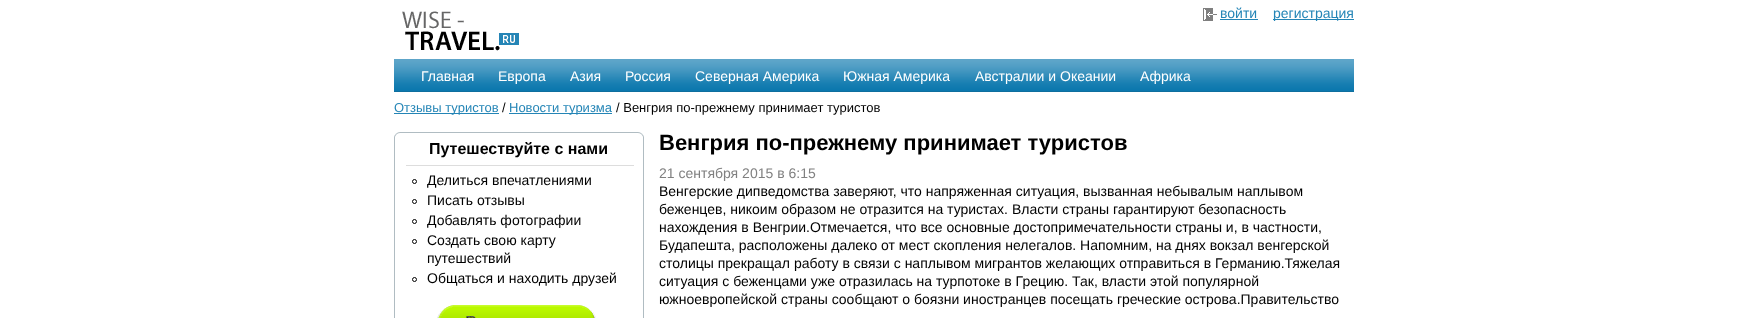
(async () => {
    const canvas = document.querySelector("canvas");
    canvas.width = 1748;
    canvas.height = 318;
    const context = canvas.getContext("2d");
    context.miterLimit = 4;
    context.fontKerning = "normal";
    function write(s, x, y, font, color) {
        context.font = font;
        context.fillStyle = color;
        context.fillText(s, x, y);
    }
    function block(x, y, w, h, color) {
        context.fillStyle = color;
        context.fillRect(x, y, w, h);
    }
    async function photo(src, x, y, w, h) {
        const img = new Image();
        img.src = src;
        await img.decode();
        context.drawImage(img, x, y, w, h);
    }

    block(0, 0, 1748, 318, "rgb(255, 255, 255)");
    await photo("media/1.png", 402, 11, 117, 40);
    await photo("media/2.png", 1203, 8, 14, 13);
    write("войти", 1220, 18, "14px Liberation Sans", "rgb(36, 133, 182)");
    block(1220, 19, 38, 1, "rgb(36, 133, 182)");
    block(1273, 19, 81, 1, "rgb(36, 133, 182)");
    write("регистрация", 1273, 18, "14px Liberation Sans", "rgb(36, 133, 182)");
    await photo("media/3.png", 394, 59, 960, 33);
    write("Главная", 421, 81, "14px Liberation Sans", "rgb(255, 255, 255)");
    write("Европа", 498, 81, "14px Liberation Sans", "rgb(255, 255, 255)");
    write("Азия", 570, 81, "14px Liberation Sans", "rgb(255, 255, 255)");
    write("Россия", 625, 81, "14px Liberation Sans", "rgb(255, 255, 255)");
    write("Северная Америка", 695, 81, "14px Liberation Sans", "rgb(255, 255, 255)");
    write("Южная Америка", 843, 81, "14px Liberation Sans", "rgb(255, 255, 255)");
    write("Австралии и Океании", 975, 81, "14px Liberation Sans", "rgb(255, 255, 255)");
    write("Африка", 1140, 81, "14px Liberation Sans", "rgb(255, 255, 255)");
    block(394, 113, 105, 1, "rgb(36, 133, 182)");
    write("Отзывы туристов", 394, 112, "13px Liberation Sans", "rgb(36, 133, 182)");
    write("/", 502, 112, "13px Liberation Sans", "rgb(0, 0, 0)");
    block(509, 113, 103, 1, "rgb(36, 133, 182)");
    write("Новости туризма", 509, 112, "13px Liberation Sans", "rgb(36, 133, 182)");
    write("/ Венгрия по-прежнему принимает туристов", 616, 112, "13px Liberation Sans", "rgb(0, 0, 0)");
    context.strokeStyle = "rgb(176, 188, 194)";
    context.strokeRect(394.5, 132.5, 249, 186);
    await photo("media/4.png", 394, 132, 6, 5);
    await photo("media/5.png", 638, 132, 6, 5);
    write("Путешествуйте с нами", 429, 154, "bold 16px Liberation Sans", "rgb(0, 0, 0)");
    block(406, 165, 228, 1, "rgb(221, 221, 221)");
    context.beginPath();
    context.arc(414.5, 181.5, 2, 0, Math.PI * 2);
    context.strokeStyle = "rgb(0, 0, 0)";
    context.stroke();
    write("Делиться впечатлениями", 427, 185, "14px Liberation Sans", "rgb(0, 0, 0)");
    context.beginPath();
    context.arc(414.5, 201.5, 2, 0, Math.PI * 2);
    context.stroke();
    write("Писать отзывы", 427, 205, "14px Liberation Sans", "rgb(0, 0, 0)");
    context.beginPath();
    context.arc(414.5, 221.5, 2, 0, Math.PI * 2);
    context.stroke();
    write("Добавлять фотографии", 427, 225, "14px Liberation Sans", "rgb(0, 0, 0)");
    context.beginPath();
    context.arc(414.5, 241.5, 2, 0, Math.PI * 2);
    context.stroke();
    write("Создать свою карту", 427, 245, "14px Liberation Sans", "rgb(0, 0, 0)");
    write("путешествий", 427, 263, "14px Liberation Sans", "rgb(0, 0, 0)");
    context.beginPath();
    context.arc(414.5, 279.5, 2, 0, Math.PI * 2);
    context.stroke();
    write("Общаться и находить друзей", 427, 283, "14px Liberation Sans", "rgb(0, 0, 0)");
    await photo("media/6.png", 437, 305, 159, 13);
    write("Венгрия по-прежнему принимает туристов", 659, 150, "bold 22px Liberation Sans", "rgb(0, 0, 0)");
    write("21 сентября 2015 в 6:15", 659, 178, "14px Liberation Sans", "rgb(128, 128, 128)");
    write("Венгерские дипведомства заверяют, что напряженная ситуация, вызванная небывалым наплывом", 659, 196, "14px Liberation Sans", "rgb(0, 0, 0)");
    write("беженцев, никоим образом не отразится на туристах. Власти страны гарантируют безопасность", 659, 214, "14px Liberation Sans", "rgb(0, 0, 0)");
    write("нахождения в Венгрии.Отмечается, что все основные достопримечательности страны и, в частности,", 659, 232, "14px Liberation Sans", "rgb(0, 0, 0)");
    write("Будапешта, расположены далеко от мест скопления нелегалов. Напомним, на днях вокзал венгерской", 659, 250, "14px Liberation Sans", "rgb(0, 0, 0)");
    write("столицы прекращал работу в связи с наплывом мигрантов желающих отправиться в Германию.Тяжелая", 659, 268, "14px Liberation Sans", "rgb(0, 0, 0)");
    write("ситуация с беженцами уже отразилась на турпотоке в Грецию. Так, власти этой популярной", 659, 286, "14px Liberation Sans", "rgb(0, 0, 0)");
    write("южноевропейской страны сообщают о боязни иностранцев посещать греческие острова.Правительство", 659, 304, "14px Liberation Sans", "rgb(0, 0, 0)");
})();
